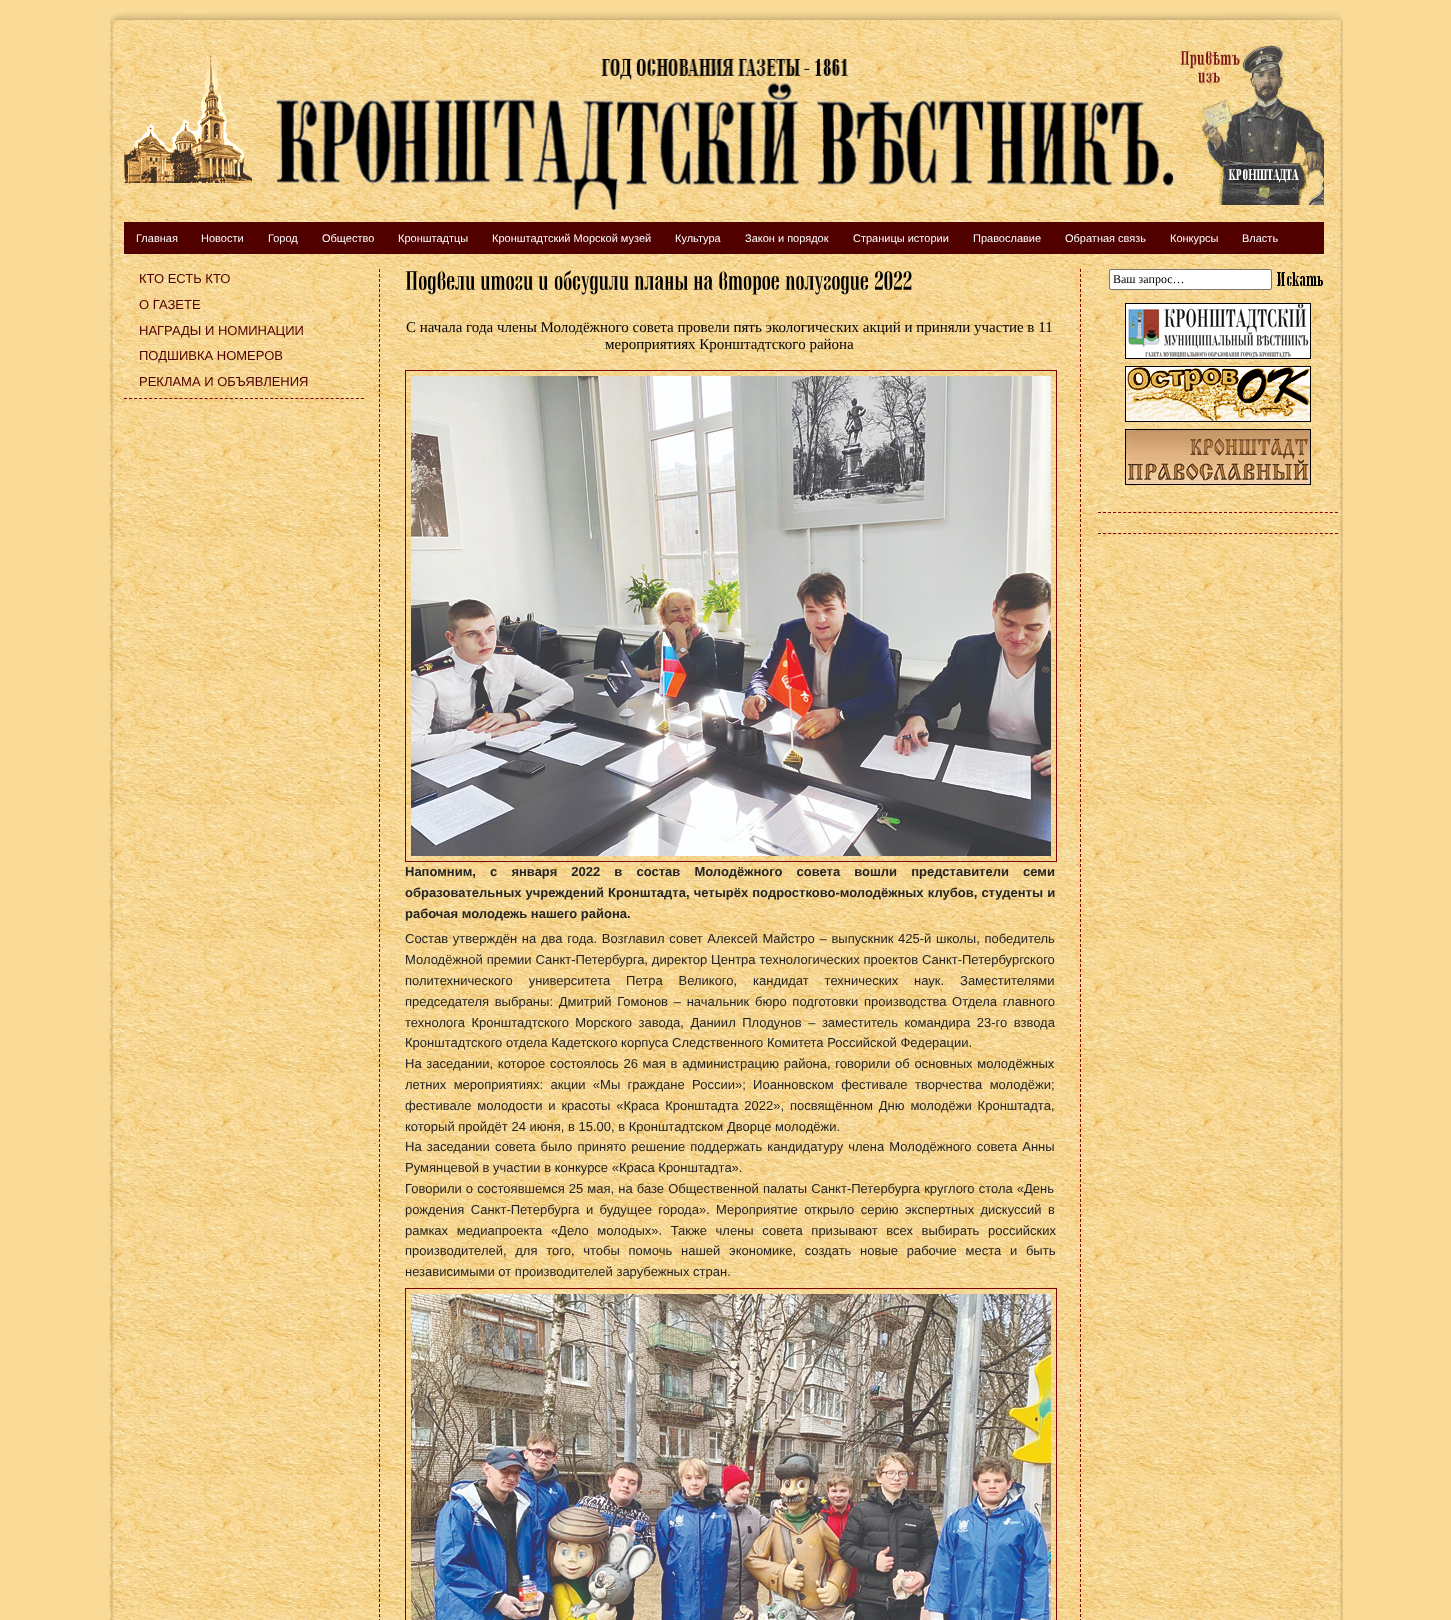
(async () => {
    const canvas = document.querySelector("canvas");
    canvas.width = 1451;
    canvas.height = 1620;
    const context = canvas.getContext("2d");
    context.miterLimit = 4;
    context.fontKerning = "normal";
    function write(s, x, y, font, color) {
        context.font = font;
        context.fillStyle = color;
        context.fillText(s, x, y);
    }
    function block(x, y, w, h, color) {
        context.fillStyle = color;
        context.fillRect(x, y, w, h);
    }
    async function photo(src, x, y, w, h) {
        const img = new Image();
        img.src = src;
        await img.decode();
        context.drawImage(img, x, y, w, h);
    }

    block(0, 0, 1451, 1620, "rgb(249, 218, 151)");
    await photo("media/1.png", 110, 11, 1232, 9);
    await photo("media/2.png", 109, 20, 1234, 249);
    await photo("media/3.png", 124, 55, 128, 128);
    await photo("media/4.png", 276, 58, 898, 152);
    await photo("media/5.png", 1180, 45, 144, 160);
    block(124, 222, 1200, 32, "rgb(81, 0, 0)");
    write("Главная", 136, 242, "11px Liberation Sans", "rgb(255, 255, 255)");
    write("Новости", 201, 242, "11px Liberation Sans", "rgb(255, 255, 255)");
    write("Город", 268, 242, "11px Liberation Sans", "rgb(255, 255, 255)");
    write("Общество", 322, 242, "11px Liberation Sans", "rgb(255, 255, 255)");
    write("Кронштадтцы", 398, 242, "11px Liberation Sans", "rgb(255, 255, 255)");
    write("Кронштадтский Морской музей", 492, 242, "11px Liberation Sans", "rgb(255, 255, 255)");
    write("Культура", 675, 242, "11px Liberation Sans", "rgb(255, 255, 255)");
    write("Закон и порядок", 745, 242, "11px Liberation Sans", "rgb(255, 255, 255)");
    write("Страницы истории", 853, 242, "11px Liberation Sans", "rgb(255, 255, 255)");
    write("Православие", 973, 242, "11px Liberation Sans", "rgb(255, 255, 255)");
    write("Обратная связь", 1065, 242, "11px Liberation Sans", "rgb(255, 255, 255)");
    write("Конкурсы", 1170, 242, "11px Liberation Sans", "rgb(255, 255, 255)");
    write("Власть", 1242, 242, "11px Liberation Sans", "rgb(255, 255, 255)");
    await photo("media/6.png", 109, 269, 1234, 1351);
    write("КТО ЕСТЬ КТО", 139, 283, "13px Liberation Sans", "rgb(81, 0, 0)");
    write("О ГАЗЕТЕ", 139, 309, "13px Liberation Sans", "rgb(81, 0, 0)");
    write("НАГРАДЫ И НОМИНАЦИИ", 139, 335, "13px Liberation Sans", "rgb(81, 0, 0)");
    write("ПОДШИВКА НОМЕРОВ", 139, 360, "13px Liberation Sans", "rgb(81, 0, 0)");
    write("РЕКЛАМА И ОБЪЯВЛЕНИЯ", 139, 386, "13px Liberation Sans", "rgb(81, 0, 0)");
    context.beginPath();
    context.moveTo(124, 398.5);
    context.lineTo(364, 398.5);
    context.strokeStyle = "rgb(128, 0, 0)";
    context.setLineDash([3, 2.04]);
    context.stroke();
    context.fillStyle = "rgb(255, 255, 255)";
    context.beginPath();
    context.roundRect(1109.5, 269.5, 162, 20, 1.5);
    context.fill();
    context.strokeStyle = "rgb(118, 118, 118)";
    context.setLineDash([]);
    context.stroke();
    write("Ваш запрос…", 1113, 283, "12px Liberation Serif", "rgb(0, 0, 0)");
    await photo("media/7.png", 1277, 272, 46, 14);
    await photo("media/8.png", 1125, 303, 186, 56);
    await photo("media/9.png", 1125, 366, 186, 56);
    await photo("media/10.png", 1125, 429, 186, 56);
    context.beginPath();
    context.moveTo(1098, 512.5);
    context.lineTo(1338, 512.5);
    context.strokeStyle = "rgb(128, 0, 0)";
    context.setLineDash([3, 2.04]);
    context.stroke();
    context.beginPath();
    context.moveTo(1098, 533.5);
    context.lineTo(1338, 533.5);
    context.stroke();
    context.beginPath();
    context.moveTo(1080.5, 269);
    context.lineTo(1080.5, 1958);
    context.setLineDash([3, 2]);
    context.stroke();
    context.beginPath();
    context.moveTo(379.5, 269);
    context.lineTo(379.5, 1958);
    context.stroke();
    await photo("media/11.png", 405, 271, 70, 24);
    await photo("media/12.png", 480, 276, 53, 14);
    await photo("media/13.png", 538, 276, 11, 14);
    await photo("media/14.png", 554, 270, 75, 25);
    await photo("media/15.png", 634, 276, 54, 14);
    await photo("media/16.png", 693, 276, 20, 14);
    await photo("media/17.png", 719, 271, 60, 24);
    await photo("media/18.png", 785, 276, 84, 19);
    await photo("media/19.png", 874, 271, 38, 19);
    write("С начала года члены Молодёжного совета провели пять экологических акций и приняли участие в 11", 406, 332, "15px Liberation Serif", "rgb(0, 0, 0)");
    write("мероприятиях Кронштадтского района", 605, 349, "15px Liberation Serif", "rgb(0, 0, 0)");
    context.setLineDash([]);
    context.strokeRect(405.5, 370.5, 651, 491);
    await photo("media/20.png", 411, 376, 640, 480);
    context.wordSpacing = "10.5px";
    write("Напомним, с января 2022 в состав Молодёжного совета вошли представители семи", 405, 876, "bold 13px Liberation Sans", "rgb(35, 35, 35)");
    context.wordSpacing = "0.5px";
    write("образовательных учреждений Кронштадта, четырёх подростково-молодёжных клубов, студенты и", 405, 897, "bold 13px Liberation Sans", "rgb(35, 35, 35)");
    context.wordSpacing = "0px";
    write("рабочая молодежь нашего района.", 405, 918, "bold 13px Liberation Sans", "rgb(35, 35, 35)");
    context.wordSpacing = "1.1px";
    write("Состав утверждён на два года. Возглавил совет Алексей Майстро – выпускник 425-й школы, победитель", 405, 943, "13px Liberation Sans", "rgb(35, 35, 35)");
    context.wordSpacing = "0.25px";
    write("Молодёжной премии Санкт-Петербурга, директор Центра технологических проектов Санкт-Петербургского", 405, 964, "13px Liberation Sans", "rgb(35, 35, 35)");
    context.wordSpacing = "12.25px";
    write("политехнического университета Петра Великого, кандидат технических наук. Заместителями", 405, 985, "13px Liberation Sans", "rgb(35, 35, 35)");
    context.wordSpacing = "2.1px";
    write("председателя выбраны: Дмитрий Гомонов – начальник бюро подготовки производства Отдела главного", 405, 1006, "13px Liberation Sans", "rgb(35, 35, 35)");
    context.wordSpacing = "2.9px";
    write("технолога Кронштадтского Морского завода, Даниил Плодунов – заместитель командира 23-го взвода", 405, 1027, "13px Liberation Sans", "rgb(35, 35, 35)");
    context.wordSpacing = "0px";
    write("Кронштадтского отдела Кадетского корпуса Следственного Комитета Российской Федерации.", 405, 1047, "13px Liberation Sans", "rgb(35, 35, 35)");
    context.wordSpacing = "1.1px";
    write("На заседании, которое состоялось 26 мая в администрацию района, говорили об основных молодёжных", 405, 1068, "13px Liberation Sans", "rgb(35, 35, 35)");
    context.wordSpacing = "3.75px";
    write("летних мероприятиях: акции «Мы граждане России»; Иоанновском фестивале творчества молодёжи;", 405, 1089, "13px Liberation Sans", "rgb(35, 35, 35)");
    context.wordSpacing = "2.25px";
    write("фестивале молодости и красоты «Краса Кронштадта 2022», посвящённом Дню молодёжи Кронштадта,", 405, 1110, "13px Liberation Sans", "rgb(35, 35, 35)");
    context.wordSpacing = "0px";
    write("который пройдёт 24 июня, в 15.00, в Кронштадтском Дворце молодёжи.", 405, 1131, "13px Liberation Sans", "rgb(35, 35, 35)");
    context.wordSpacing = "1.5px";
    write("На заседании совета было принято решение поддержать кандидатуру члена Молодёжного совета Анны", 405, 1151, "13px Liberation Sans", "rgb(35, 35, 35)");
    context.wordSpacing = "0px";
    write("Румянцевой в участии в конкурсе «Краса Кронштадта».", 405, 1172, "13px Liberation Sans", "rgb(35, 35, 35)");
    context.wordSpacing = "0.5px";
    write("Говорили о состоявшемся 25 мая, на базе Общественной палаты Санкт-Петербурга круглого стола «День", 405, 1193, "13px Liberation Sans", "rgb(35, 35, 35)");
    context.wordSpacing = "2.75px";
    write("рождения Санкт-Петербурга и будущее города». Мероприятие открыло серию экспертных дискуссий в", 405, 1214, "13px Liberation Sans", "rgb(35, 35, 35)");
    context.wordSpacing = "5px";
    write("рамках медиапроекта «Дело молодых». Также члены совета призывают всех выбирать российских", 405, 1235, "13px Liberation Sans", "rgb(35, 35, 35)");
    context.wordSpacing = "5.1px";
    write("производителей, для того, чтобы помочь нашей экономике, создать новые рабочие места и быть", 405, 1255, "13px Liberation Sans", "rgb(35, 35, 35)");
    context.wordSpacing = "0px";
    write("независимыми от производителей зарубежных стран.", 405, 1276, "13px Liberation Sans", "rgb(35, 35, 35)");
    context.strokeRect(405.5, 1288.5, 651, 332);
    await photo("media/21.png", 411, 1294, 640, 326);
})();
